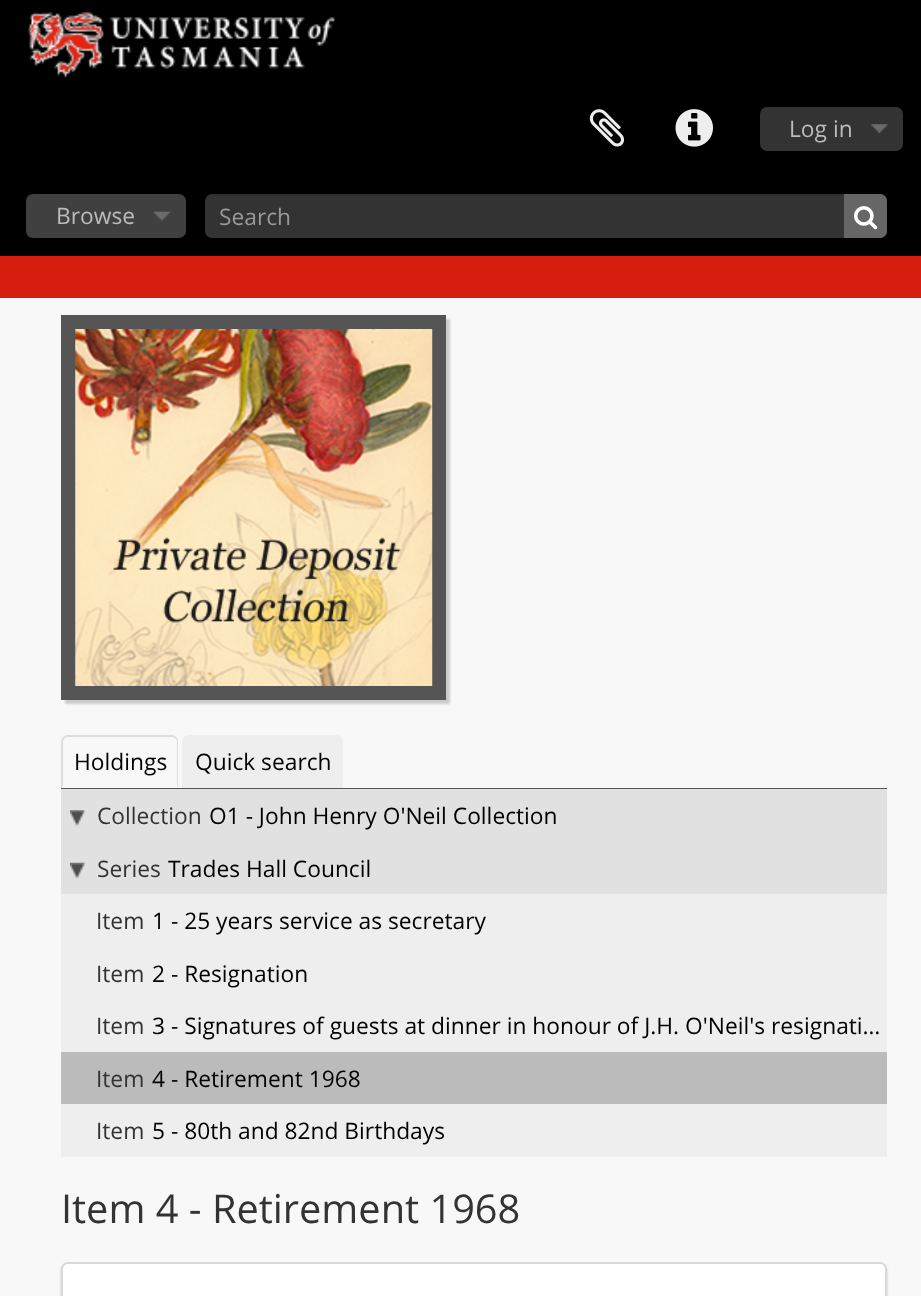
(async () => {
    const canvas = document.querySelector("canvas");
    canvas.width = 921;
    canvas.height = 1296;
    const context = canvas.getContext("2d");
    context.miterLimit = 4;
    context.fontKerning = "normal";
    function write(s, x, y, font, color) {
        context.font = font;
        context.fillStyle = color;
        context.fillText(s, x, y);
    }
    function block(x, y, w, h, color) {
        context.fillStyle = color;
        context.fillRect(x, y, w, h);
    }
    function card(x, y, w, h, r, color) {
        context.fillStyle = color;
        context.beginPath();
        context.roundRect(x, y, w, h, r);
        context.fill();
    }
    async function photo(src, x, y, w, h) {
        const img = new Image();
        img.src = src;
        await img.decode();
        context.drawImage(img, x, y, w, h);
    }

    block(0, 0, 921, 1296, "rgb(248, 248, 248)");
    block(0, 0, 921, 256, "rgb(0, 0, 0)");
    await photo("media/1.png", 27, 11, 308, 67);
    await photo("media/2.png", 589, 109, 35, 38);
    await photo("media/3.png", 675, 109, 38, 38);
    card(760, 107, 143, 44, 7, "rgb(51, 51, 51)");
    await photo("media/4.png", 871, 124, 17, 9);
    write("Log in", 789, 137, "22.75px Open Sans", "rgb(187, 187, 187)");
    card(26, 194, 160, 44, 7, "rgb(64, 64, 64)");
    await photo("media/5.png", 154, 211, 17, 10);
    write("Browse", 56, 224, "22.75px Open Sans", "rgb(187, 187, 187)");
    card(205, 194, 682, 44, 7, "rgb(51, 51, 51)");
    context.fillStyle = "rgba(0, 0, 0, 0.07)";
    context.beginPath();
    context.moveTo(212, 196);
    context.lineTo(880, 196);
    context.bezierCurveTo(884, 196, 887, 199, 887, 203);
    context.lineTo(887, 201);
    context.bezierCurveTo(887, 197, 884, 194, 880, 194);
    context.lineTo(212, 194);
    context.bezierCurveTo(208, 194, 205, 197, 205, 201);
    context.lineTo(205, 203);
    context.bezierCurveTo(205, 199, 208, 196, 212, 196);
    context.closePath();
    context.fill();
    write("Search", 219, 225, "22.75px Open Sans", "rgb(153, 153, 153)");
    context.fillStyle = "rgb(102, 102, 102)";
    context.beginPath();
    context.roundRect(844, 194, 43, 44, [0, 7, 7, 0]);
    context.fill();
    await photo("media/6.png", 854, 206, 24, 24);
    block(0, 256, 921, 42, "rgb(215, 29, 13)");
    context.fillStyle = "rgba(25, 25, 25, 0.2)";
    context.filter = "blur(1px)";
    context.beginPath();
    context.rect(65, 319, 385, 385);
    context.fill();
    context.filter = "none";
    block(61, 315, 385, 385, "rgb(85, 85, 85)");
    await photo("media/7.png", 75, 329, 358, 357);
    block(61, 788, 826, 1, "rgb(85, 85, 85)");
    context.fillStyle = "rgb(221, 221, 221)";
    context.beginPath();
    context.moveTo(68, 735);
    context.bezierCurveTo(66, 735, 64, 736, 63, 737);
    context.lineTo(65, 738);
    context.bezierCurveTo(65, 737, 67, 737, 68, 737);
    context.lineTo(172, 737);
    context.bezierCurveTo(173, 737, 174, 737, 175, 738);
    context.lineTo(176, 737);
    context.bezierCurveTo(175, 736, 174, 735, 172, 735);
    context.closePath();
    context.fill();
    context.beginPath();
    context.moveTo(176, 737);
    context.bezierCurveTo(177, 738, 178, 740, 178, 742);
    context.lineTo(178, 787);
    context.lineTo(177, 786);
    context.lineTo(177, 742);
    context.bezierCurveTo(177, 740, 176, 739, 175, 738);
    context.closePath();
    context.fill();
    context.beginPath();
    context.moveTo(61, 788);
    context.lineTo(61, 740);
    context.lineTo(63, 737);
    context.lineTo(65, 738);
    context.bezierCurveTo(64, 739, 63, 740, 63, 742);
    context.lineTo(63, 786);
    context.closePath();
    context.fill();
    write("Holdings", 74, 770, "22.75px Open Sans", "rgb(0, 0, 0)");
    context.fillStyle = "rgb(238, 238, 238)";
    context.beginPath();
    context.roundRect(182, 735, 161, 53, [7, 7, 0, 0]);
    context.fill();
    write("Quick search", 195, 770, "22.75px Open Sans", "rgb(0, 0, 0)");
    block(61, 894, 826, 263, "rgb(238, 238, 238)");
    block(61, 789, 826, 105, "rgb(225, 225, 225)");
    await photo("media/8.png", 70, 810, 16, 17);
    write("Collection", 97, 824, "22.75px Open Sans", "rgb(51, 51, 51)");
    write("O1 - John Henry O'Neil Collection", 209, 824, "22.75px Open Sans", "rgb(0, 0, 0)");
    await photo("media/9.png", 70, 862, 16, 17);
    write("Series", 97, 877, "22.75px Open Sans", "rgb(51, 51, 51)");
    write("Trades Hall Council", 168, 877, "22.75px Open Sans", "rgb(0, 0, 0)");
    write("Item", 96, 929, "22.75px Open Sans", "rgb(51, 51, 51)");
    write("1 - 25 years service as secretary", 152, 929, "22.75px Open Sans", "rgb(0, 0, 0)");
    write("Item", 96, 982, "22.75px Open Sans", "rgb(51, 51, 51)");
    write("2 - Resignation", 152, 982, "22.75px Open Sans", "rgb(0, 0, 0)");
    write("Item", 96, 1034, "22.75px Open Sans", "rgb(51, 51, 51)");
    write("3 - Signatures of guests at dinner in honour of J.H. O'Neil's resignati…", 152, 1034, "22.75px Open Sans", "rgb(0, 0, 0)");
    block(61, 1052, 826, 52, "rgb(187, 187, 187)");
    write("Item", 96, 1087, "22.75px Open Sans", "rgb(51, 51, 51)");
    write("4 - Retirement 1968", 152, 1087, "22.75px Open Sans", "rgb(0, 0, 0)");
    write("Item", 96, 1139, "22.75px Open Sans", "rgb(51, 51, 51)");
    write("5 - 80th and 82nd Birthdays", 152, 1139, "22.75px Open Sans", "rgb(0, 0, 0)");
    write("Item 4 - Retirement 1968", 61, 1223, "39.75px Open Sans", "rgb(51, 51, 51)");
    context.fillStyle = "rgba(0, 0, 0, 0.2)";
    context.filter = "blur(1px)";
    context.beginPath();
    context.roundRect(61, 1264, 826, 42, 7);
    context.fill();
    context.filter = "none";
    context.fillStyle = "rgb(255, 255, 255)";
    context.beginPath();
    context.roundRect(62, 1263, 824, 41, 6);
    context.fill();
    context.strokeStyle = "rgb(217, 217, 217)";
    context.lineWidth = 2;
    context.stroke();
})();
